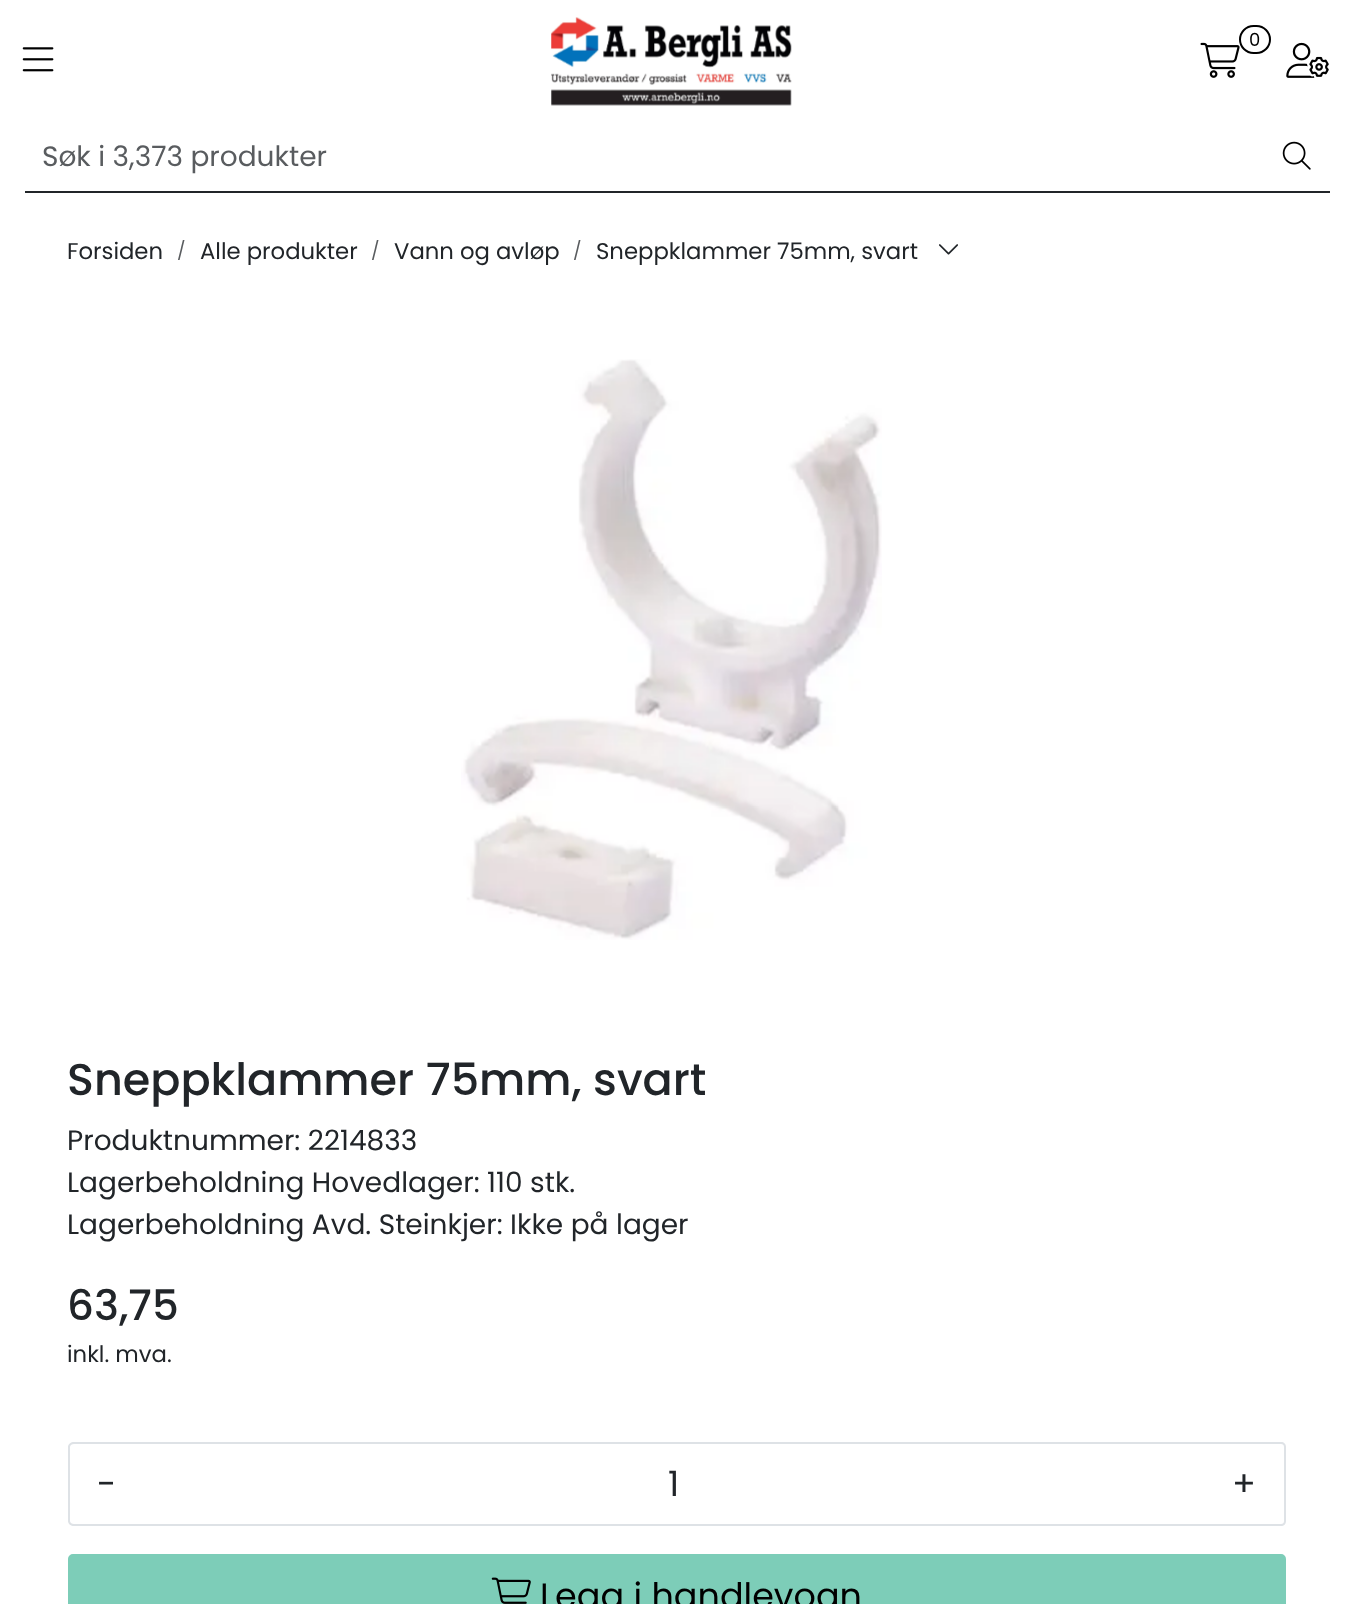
(async () => {
    const canvas = document.querySelector("canvas");
    canvas.width = 1352;
    canvas.height = 1604;
    const context = canvas.getContext("2d");
    context.miterLimit = 4;
    context.fontKerning = "normal";
    function write(s, x, y, font, color) {
        context.font = font;
        context.fillStyle = color;
        context.fillText(s, x, y);
    }
    function block(x, y, w, h, color) {
        context.fillStyle = color;
        context.fillRect(x, y, w, h);
    }
    async function photo(src, x, y, w, h) {
        const img = new Image();
        img.src = src;
        await img.decode();
        context.drawImage(img, x, y, w, h);
    }

    block(0, 0, 1352, 1604, "rgb(255, 255, 255)");
    await photo("media/1.png", 551, 17, 241, 89);
    await photo("media/2.png", 1200, 42, 40, 36);
    context.beginPath();
    context.roundRect(1240, 26, 30, 27, 13.5);
    context.strokeStyle = "rgb(0, 0, 0)";
    context.lineWidth = 2;
    context.stroke();
    write("0", 1249, 46, "18px Poppins", "rgb(0, 0, 0)");
    await photo("media/3.png", 1286, 42, 43, 36);
    await photo("media/4.png", 22, 47, 32, 25);
    block(25, 191, 1239, 2, "rgb(33, 37, 41)");
    write("Søk i 3,373 produkter", 42, 166, "28px Poppins", "rgb(89, 92, 95)");
    context.fillStyle = "rgb(255, 255, 255)";
    context.beginPath();
    context.roundRect(1262, 123, 70, 70, [0, 5, 5, 0]);
    context.fill();
    block(1262, 191, 68, 2, "rgb(33, 37, 41)");
    await photo("media/5.png", 1282, 141, 29, 29);
    write("Forsiden", 67, 259, "22.75px Poppins", "rgb(33, 37, 41)");
    write("/", 177, 257, "18px Poppins", "rgb(89, 92, 95)");
    write("Alle produkter", 200, 259, "22.75px Poppins", "rgb(33, 37, 41)");
    write("/", 371, 257, "18px Poppins", "rgb(89, 92, 95)");
    write("Vann og avløp", 394, 259, "22.75px Poppins", "rgb(33, 37, 41)");
    write("/", 573, 257, "18px Poppins", "rgb(89, 92, 95)");
    write("Sneppklammer 75mm, svart", 596, 259, "22.75px Poppins", "rgb(33, 37, 41)");
    await photo("media/6.png", 939, 244, 19, 11);
    await photo("media/7.png", 461, 359, 421, 581);
    write("Sneppklammer 75mm, svart", 67, 1095, "500 44.5px Poppins", "rgb(33, 37, 41)");
    write("Produktnummer: 2214833", 67, 1150, "28px Poppins", "rgb(33, 37, 41)");
    write("Lagerbeholdning Hovedlager: 110 stk.", 67, 1192, "28px Poppins", "rgb(33, 37, 41)");
    write("Lagerbeholdning Avd. Steinkjer: Ikke på lager", 67, 1234, "28px Poppins", "rgb(33, 37, 41)");
    write("63,75", 67, 1320, "500 42px Poppins", "rgb(33, 37, 41)");
    write("inkl. mva.", 67, 1362, "22.75px Poppins", "rgb(33, 37, 41)");
    block(144, 1442, 1062, 2, "rgb(222, 226, 230)");
    block(144, 1524, 1062, 2, "rgb(222, 226, 230)");
    context.fillStyle = "rgb(255, 255, 255)";
    context.beginPath();
    context.roundRect(68, 1442, 77, 84, [5, 0, 0, 5]);
    context.fill();
    context.fillStyle = "rgb(222, 226, 230)";
    context.beginPath();
    context.moveTo(74, 1442);
    context.lineTo(145, 1442);
    context.lineTo(145, 1526);
    context.lineTo(74, 1526);
    context.bezierCurveTo(71, 1526, 68, 1524, 68, 1521);
    context.lineTo(68, 1447);
    context.bezierCurveTo(68, 1444, 71, 1442, 74, 1442);
    context.closePath();
    context.moveTo(74, 1444);
    context.lineTo(145, 1444);
    context.lineTo(145, 1524);
    context.lineTo(74, 1524);
    context.bezierCurveTo(72, 1524, 70, 1523, 70, 1521);
    context.lineTo(70, 1447);
    context.bezierCurveTo(70, 1445, 72, 1444, 74, 1444);
    context.closePath();
    context.fill("evenodd");
    write("-", 97, 1496, "35px Poppins", "rgb(33, 37, 41)");
    write("1", 668, 1496, "35px Poppins", "rgb(33, 37, 41)");
    context.fillStyle = "rgb(255, 255, 255)";
    context.beginPath();
    context.roundRect(1204, 1442, 82, 84, [0, 5, 5, 0]);
    context.fill();
    context.fillStyle = "rgb(222, 226, 230)";
    context.beginPath();
    context.moveTo(1204, 1442);
    context.lineTo(1281, 1442);
    context.bezierCurveTo(1284, 1442, 1286, 1444, 1286, 1447);
    context.lineTo(1286, 1521);
    context.bezierCurveTo(1286, 1524, 1284, 1526, 1281, 1526);
    context.lineTo(1204, 1526);
    context.closePath();
    context.moveTo(1204, 1444);
    context.lineTo(1281, 1444);
    context.bezierCurveTo(1283, 1444, 1284, 1445, 1284, 1447);
    context.lineTo(1284, 1521);
    context.bezierCurveTo(1284, 1523, 1283, 1524, 1281, 1524);
    context.lineTo(1204, 1524);
    context.closePath();
    context.fill("evenodd");
    write("+", 1232, 1496, "35px Poppins", "rgb(33, 37, 41)");
    context.fillStyle = "rgb(125, 205, 184)";
    context.beginPath();
    context.roundRect(69, 1555, 1216, 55, 4);
    context.fill();
    context.strokeStyle = "rgb(125, 205, 184)";
    context.stroke();
    await photo("media/8.png", 491, 1577, 40, 27);
    write("Legg i handlevogn", 540, 1608, "35px Poppins", "rgb(0, 0, 0)");
})();
